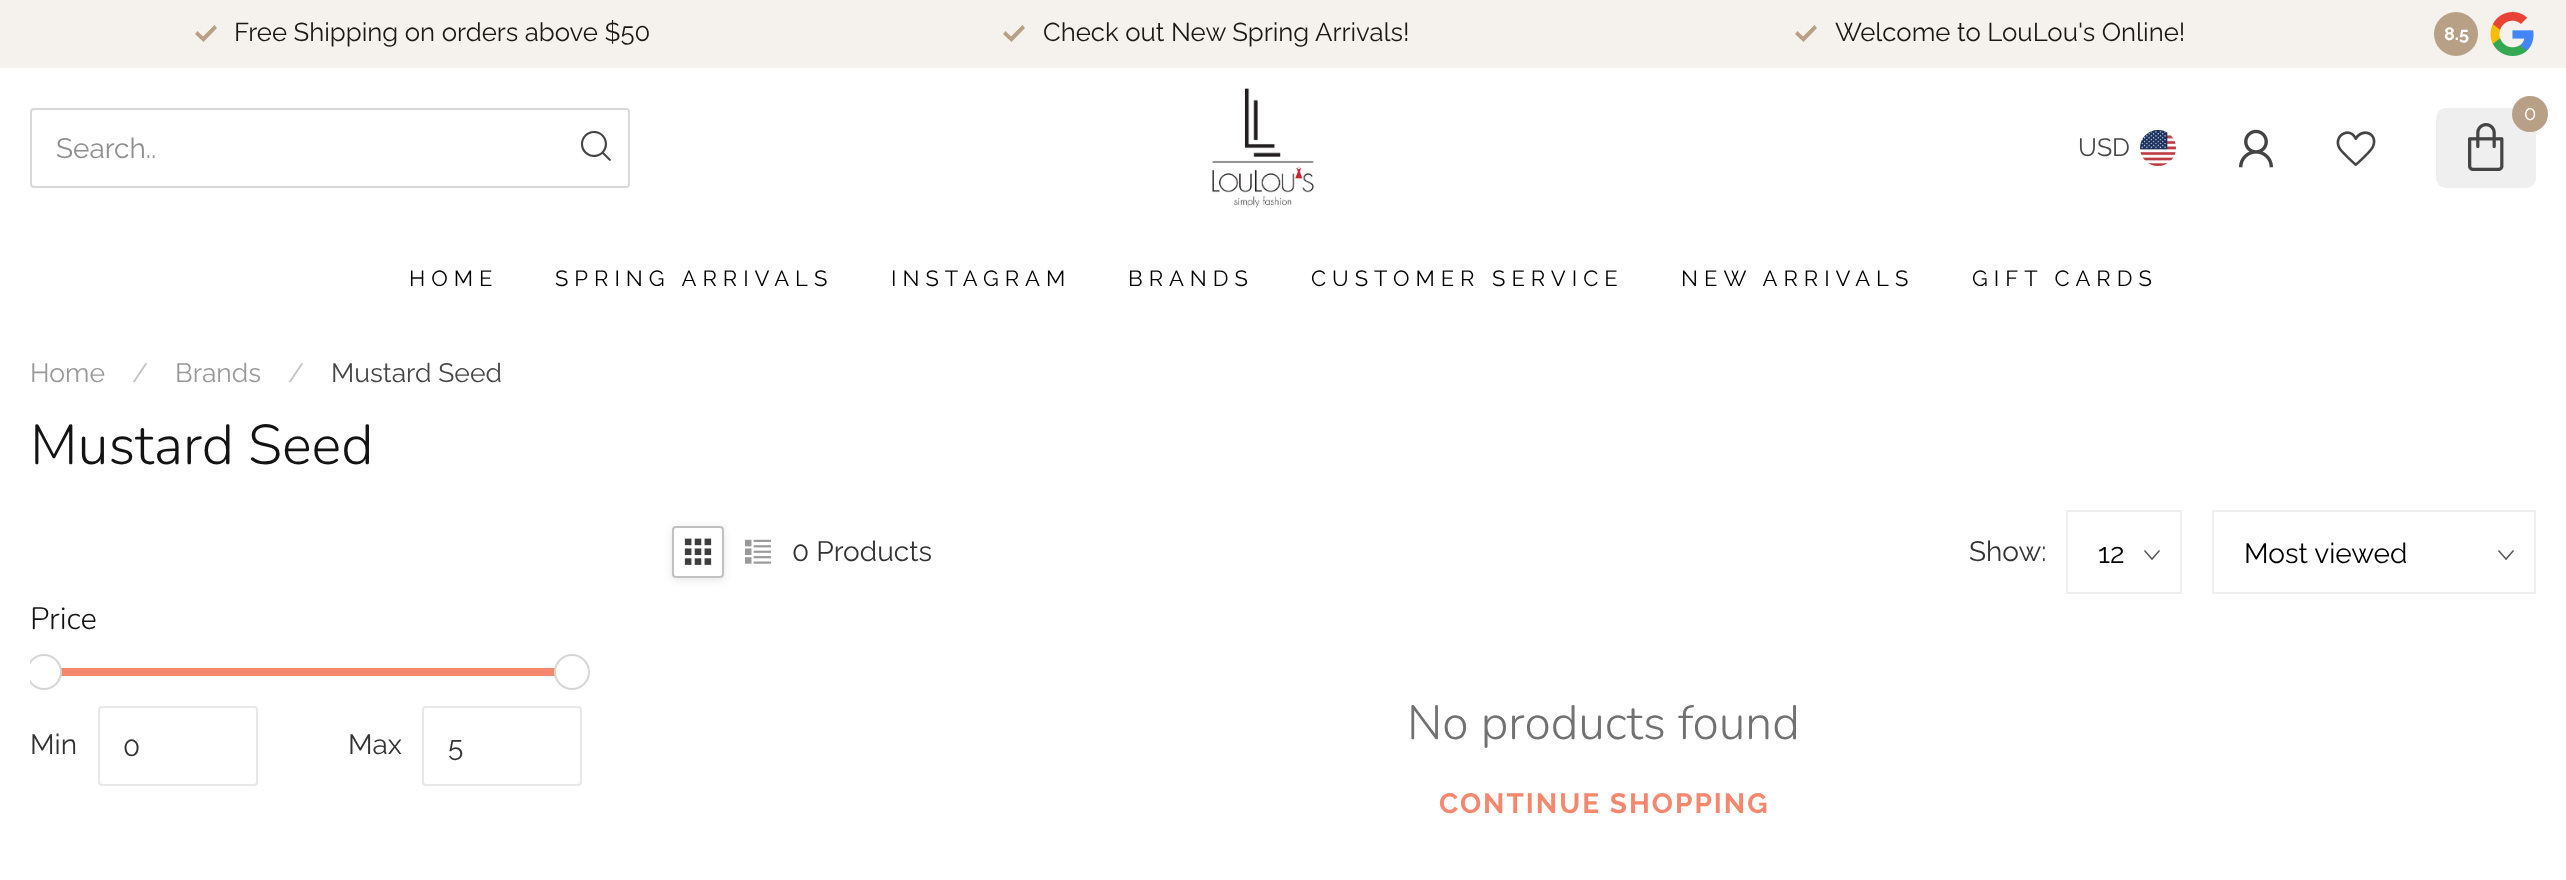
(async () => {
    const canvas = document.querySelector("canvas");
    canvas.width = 2566;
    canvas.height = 880;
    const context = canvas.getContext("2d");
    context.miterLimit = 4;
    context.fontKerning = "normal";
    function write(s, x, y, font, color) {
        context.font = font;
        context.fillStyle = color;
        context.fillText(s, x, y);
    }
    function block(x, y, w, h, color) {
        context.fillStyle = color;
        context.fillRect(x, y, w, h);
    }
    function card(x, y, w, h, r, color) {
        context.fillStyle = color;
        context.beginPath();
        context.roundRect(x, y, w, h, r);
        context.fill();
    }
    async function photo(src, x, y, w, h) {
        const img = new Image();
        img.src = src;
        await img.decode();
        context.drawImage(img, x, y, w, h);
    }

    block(0, 0, 2566, 880, "rgb(255, 255, 255)");
    block(0, 0, 2566, 68, "rgb(245, 241, 237)");
    context.fillStyle = "rgb(183, 160, 133)";
    context.beginPath();
    context.moveTo(203.5, 42);
    context.lineTo(195, 34);
    context.lineTo(197.5, 31);
    context.lineTo(203, 36.5);
    context.lineTo(214.5, 25);
    context.lineTo(217, 28);
    context.closePath();
    context.fill();
    write("Free Shipping on orders above $50", 234, 41, "25.75px Raleway", "rgb(27, 24, 21)");
    context.fillStyle = "rgb(183, 160, 133)";
    context.beginPath();
    context.moveTo(1011.5, 42);
    context.lineTo(1003, 34);
    context.lineTo(1005.5, 31);
    context.lineTo(1011, 36.5);
    context.lineTo(1022.5, 25);
    context.lineTo(1025, 28);
    context.closePath();
    context.fill();
    write("Check out New Spring Arrivals!", 1043, 41, "25.75px Raleway", "rgb(27, 24, 21)");
    context.fillStyle = "rgb(183, 160, 133)";
    context.beginPath();
    context.moveTo(1803.5, 42);
    context.lineTo(1795, 34);
    context.lineTo(1797.5, 31);
    context.lineTo(1803, 36.5);
    context.lineTo(1814.5, 25);
    context.lineTo(1817, 28);
    context.closePath();
    context.fill();
    write("Welcome to LouLou's Online!", 1835, 41, "25.75px Raleway", "rgb(27, 24, 21)");
    context.fillStyle = "rgb(183, 160, 133)";
    context.beginPath();
    context.arc(2456, 34, 22, 0, Math.PI * 2);
    context.fill();
    write("8.5", 2444, 40, "bold 18px Raleway", "rgb(255, 255, 255)");
    await photo("media/1.png", 2490, 12, 44, 44);
    context.beginPath();
    context.roundRect(31, 109, 598, 78, 3);
    context.strokeStyle = "rgb(217, 217, 217)";
    context.lineWidth = 2;
    context.stroke();
    write("Search..", 56, 158, "28px Raleway", "rgb(143, 143, 143)");
    await photo("media/2.png", 580, 131, 31, 30);
    await photo("media/3.png", 1212, 88, 102, 120);
    card(2436, 108, 100, 80, 10, "rgb(239, 239, 239)");
    context.fillStyle = "rgb(183, 160, 133)";
    context.beginPath();
    context.arc(2530, 114, 18, 0, Math.PI * 2);
    context.fill();
    write("0", 2524, 120, "20px Raleway", "rgb(255, 255, 255)");
    await photo("media/4.png", 2468, 123, 36, 48);
    write("USD", 2078, 156, "25px Raleway", "rgb(71, 71, 71)");
    await photo("media/5.png", 2140, 130, 36, 36);
    await photo("media/6.png", 2239, 129, 34, 39);
    await photo("media/7.png", 2336, 131, 40, 35);
    context.letterSpacing = "6px";
    write("HOME", 409, 286, "22px Raleway", "rgb(0, 0, 0)");
    write("SPRING ARRIVALS", 555, 286, "22px Raleway", "rgb(0, 0, 0)");
    write("INSTAGRAM", 891, 286, "22px Raleway", "rgb(0, 0, 0)");
    write("BRANDS", 1128, 286, "22px Raleway", "rgb(0, 0, 0)");
    write("CUSTOMER SERVICE", 1311, 286, "22px Raleway", "rgb(0, 0, 0)");
    write("NEW ARRIVALS", 1681, 286, "22px Raleway", "rgb(0, 0, 0)");
    write("GIFT CARDS", 1972, 286, "22px Raleway", "rgb(0, 0, 0)");
    context.letterSpacing = "0px";
    write("Home", 30, 382, "26.5px Raleway", "rgb(153, 153, 153)");
    write("/", 132, 382, "26.5px Raleway", "rgb(194, 194, 194)");
    write("Brands", 175, 382, "26.5px Raleway", "rgb(153, 153, 153)");
    write("/", 288, 382, "26.5px Raleway", "rgb(194, 194, 194)");
    write("Mustard Seed", 331, 382, "26.5px Raleway", "rgb(71, 71, 71)");
    write("Mustard Seed", 30, 464, "300 56px Nunito", "rgb(19, 19, 19)");
    write("Price", 30, 629, "300 31px Nunito", "rgb(19, 19, 19)");
    block(61, 668, 494, 8, "rgb(245, 135, 110)");
    context.save();
    context.beginPath();
    context.rect(30, 540, 582, 276);
    context.clip();
    context.fillStyle = "rgb(255, 255, 255)";
    context.beginPath();
    context.arc(44, 672, 17, 0, Math.PI * 2);
    context.fill();
    context.strokeStyle = "rgb(214, 214, 214)";
    context.stroke();
    context.restore();
    context.fillStyle = "rgb(255, 255, 255)";
    context.beginPath();
    context.arc(572, 672, 17, 0, Math.PI * 2);
    context.fill();
    context.strokeStyle = "rgb(214, 214, 214)";
    context.stroke();
    write("Min", 30, 754, "28px Raleway", "rgb(51, 51, 51)");
    context.beginPath();
    context.roundRect(99, 707, 158, 78, 3);
    context.strokeStyle = "rgb(232, 232, 232)";
    context.stroke();
    write("0", 123, 756, "28px Raleway", "rgb(51, 51, 51)");
    write("Max", 348, 754, "28px Raleway", "rgb(51, 51, 51)");
    context.beginPath();
    context.roundRect(423, 707, 158, 78, 3);
    context.stroke();
    write("5", 448, 756, "28px Raleway", "rgb(51, 51, 51)");
    context.save();
    context.beginPath();
    context.moveTo(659, 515);
    context.lineTo(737, 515);
    context.lineTo(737, 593);
    context.lineTo(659, 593);
    context.closePath();
    context.moveTo(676, 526);
    context.lineTo(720, 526);
    context.bezierCurveTo(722, 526, 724, 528, 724, 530);
    context.lineTo(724, 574);
    context.bezierCurveTo(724, 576, 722, 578, 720, 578);
    context.lineTo(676, 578);
    context.bezierCurveTo(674, 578, 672, 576, 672, 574);
    context.lineTo(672, 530);
    context.bezierCurveTo(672, 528, 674, 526, 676, 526);
    context.closePath();
    context.clip("evenodd");
    context.fillStyle = "rgba(0, 0, 0, 0.1)";
    context.filter = "blur(4px)";
    context.beginPath();
    context.roundRect(672, 528, 52, 52, 4);
    context.fill();
    context.filter = "none";
    context.restore();
    context.beginPath();
    context.roundRect(673, 527, 50, 50, 3);
    context.strokeStyle = "rgb(193, 193, 193)";
    context.stroke();
    await photo("media/8.png", 684, 538, 28, 27);
    await photo("media/9.png", 744, 539, 28, 25);
    write("0 Products", 792, 561, "28px Raleway", "rgb(51, 51, 51)");
    write("Show:", 1969, 561, "28px Raleway", "rgb(51, 51, 51)");
    context.beginPath();
    context.moveTo(2159.5, 550.5);
    context.lineTo(2152, 559);
    context.lineTo(2144.5, 550.5);
    context.strokeStyle = "rgb(89, 89, 89)";
    context.lineWidth = 1.5;
    context.stroke();
    context.strokeStyle = "rgb(238, 238, 238)";
    context.lineWidth = 2;
    context.strokeRect(2067, 511, 114, 82);
    write("12", 2098, 563, "28px Raleway", "rgb(0, 0, 0)");
    context.beginPath();
    context.moveTo(2513.5, 550.5);
    context.lineTo(2506, 559);
    context.lineTo(2498.5, 550.5);
    context.strokeStyle = "rgb(89, 89, 89)";
    context.lineWidth = 1.5;
    context.stroke();
    context.strokeStyle = "rgb(238, 238, 238)";
    context.lineWidth = 2;
    context.strokeRect(2213, 511, 322, 82);
    write("Most viewed", 2244, 563, "28px Raleway", "rgb(0, 0, 0)");
    write("No products found", 1407, 739, "300 48px Nunito", "rgb(113, 113, 113)");
    context.letterSpacing = "2px";
    write("CONTINUE SHOPPING", 1439, 813, "bold 28px Raleway", "rgb(245, 135, 110)");
})();
